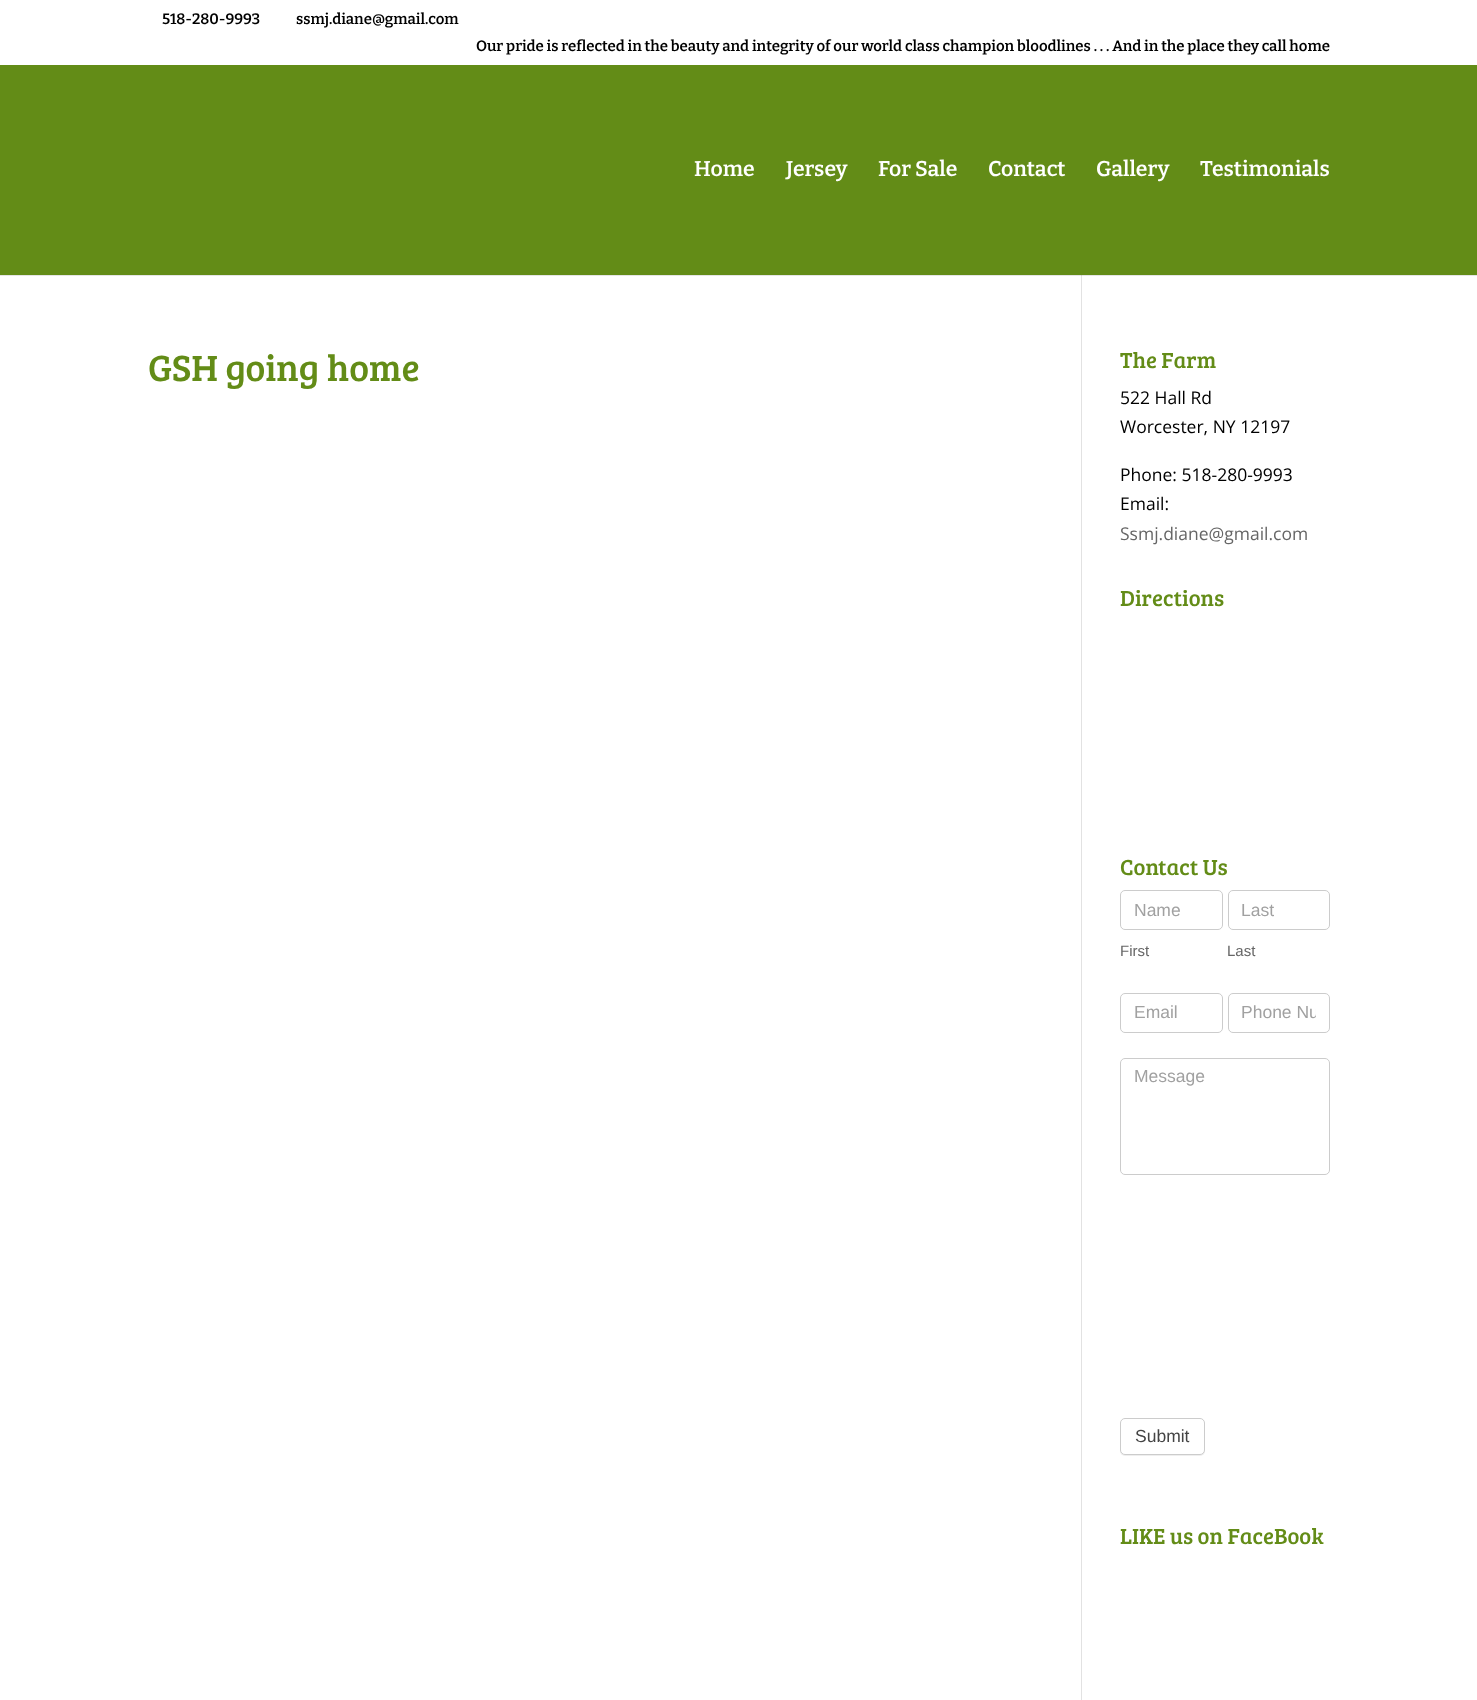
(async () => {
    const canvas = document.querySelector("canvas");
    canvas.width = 1477;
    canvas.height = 1700;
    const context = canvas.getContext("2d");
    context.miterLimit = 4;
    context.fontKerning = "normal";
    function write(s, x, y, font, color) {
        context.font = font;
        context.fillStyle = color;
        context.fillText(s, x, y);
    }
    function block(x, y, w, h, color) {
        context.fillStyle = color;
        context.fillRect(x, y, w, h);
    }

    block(0, 0, 1477, 1700, "rgb(255, 255, 255)");
    write("518-280-9993", 162, 24, "600 15px Bitter", "rgb(0, 0, 0)");
    write("ssmj.diane@gmail.com", 296, 24, "600 15px Bitter", "rgb(0, 0, 0)");
    write("Our pride is reflected in the beauty and integrity of our world class champion bloodlines . . . And in the place they call home", 476, 51, "600 15px Bitter", "rgb(0, 0, 0)");
    block(1081, 275, 1, 1425, "rgb(226, 226, 226)");
    context.fillStyle = "rgba(0, 0, 0, 0.1)";
    context.beginPath();
    context.moveTo(0, 275);
    context.lineTo(0, 276);
    context.lineTo(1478, 276);
    context.lineTo(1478, 66);
    context.lineTo(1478, 275);
    context.closePath();
    context.fill();
    block(0, 65, 1477, 210, "rgb(99, 140, 23)");
    write("Home", 694, 176, "600 21.25px Bitter", "rgb(255, 255, 255)");
    write("Jersey", 786, 176, "600 21.25px Bitter", "rgb(255, 255, 255)");
    write("For Sale", 878, 176, "600 21.25px Bitter", "rgb(255, 255, 255)");
    write("Contact", 988, 176, "600 21.25px Bitter", "rgb(255, 255, 255)");
    write("Gallery", 1096, 176, "600 21.25px Bitter", "rgb(255, 255, 255)");
    write("Testimonials", 1200, 176, "600 21.25px Bitter", "rgb(255, 255, 255)");
    write("GSH going home", 148, 381, "37.5px Bree Serif", "rgb(99, 140, 23)");
    write("The Farm", 1120, 368, "22.5px Bree Serif", "rgb(99, 140, 23)");
    write("522 Hall Rd", 1120, 404, "17.5px Open Sans", "rgb(0, 0, 0)");
    write("Worcester, NY 12197", 1120, 433, "17.5px Open Sans", "rgb(0, 0, 0)");
    write("Phone: 518-280-9993", 1120, 481, "17.5px Open Sans", "rgb(0, 0, 0)");
    write("Email:", 1120, 510, "17.5px Open Sans", "rgb(0, 0, 0)");
    write("Ssmj.diane@gmail.com", 1120, 540, "17.5px Open Sans", "rgb(102, 102, 102)");
    write("Directions", 1120, 606, "22.5px Bree Serif", "rgb(99, 140, 23)");
    write("Contact Us", 1120, 875, "22.5px Bree Serif", "rgb(99, 140, 23)");
    context.beginPath();
    context.roundRect(1120.5, 890.5, 102, 39, 4.5);
    context.strokeStyle = "rgb(204, 204, 204)";
    context.stroke();
    write("Name", 1134, 916, "17.5px Liberation Sans", "rgb(161, 161, 161)");
    write("First", 1120, 956, "15px Liberation Sans", "rgb(102, 102, 102)");
    context.beginPath();
    context.roundRect(1228.5, 890.5, 101, 39, 4.5);
    context.stroke();
    write("Last", 1241, 916, "17.5px Liberation Sans", "rgb(161, 161, 161)");
    write("Last", 1227, 956, "15px Liberation Sans", "rgb(102, 102, 102)");
    context.beginPath();
    context.roundRect(1120.5, 993.5, 102, 39, 4.5);
    context.stroke();
    write("Email", 1134, 1018, "17.5px Liberation Sans", "rgb(161, 161, 161)");
    context.beginPath();
    context.roundRect(1228.5, 993.5, 101, 39, 4.5);
    context.stroke();
    context.save();
    context.beginPath();
    context.rect(1241, 1003, 75, 20);
    context.clip();
    write("Phone Nu", 1241, 1018, "17.5px Liberation Sans", "rgb(161, 161, 161)");
    context.restore();
    context.beginPath();
    context.roundRect(1120.5, 1058.5, 209, 116, 4.5);
    context.stroke();
    write("Message", 1134, 1082, "17.5px Liberation Sans", "rgb(161, 161, 161)");
    context.fillStyle = "rgb(238, 238, 238)";
    context.filter = "blur(0.5px)";
    context.beginPath();
    context.roundRect(1120, 1419, 85, 37, 5);
    context.fill();
    context.filter = "none";
    context.fillStyle = "rgb(255, 255, 255)";
    context.beginPath();
    context.roundRect(1120.5, 1418.5, 84, 36, 4.5);
    context.fill();
    context.stroke();
    write("Submit", 1135, 1442, "17.5px Liberation Sans", "rgb(68, 68, 68)");
    write("LIKE us on FaceBook", 1120, 1544, "22.5px Bree Serif", "rgb(99, 140, 23)");
})();
